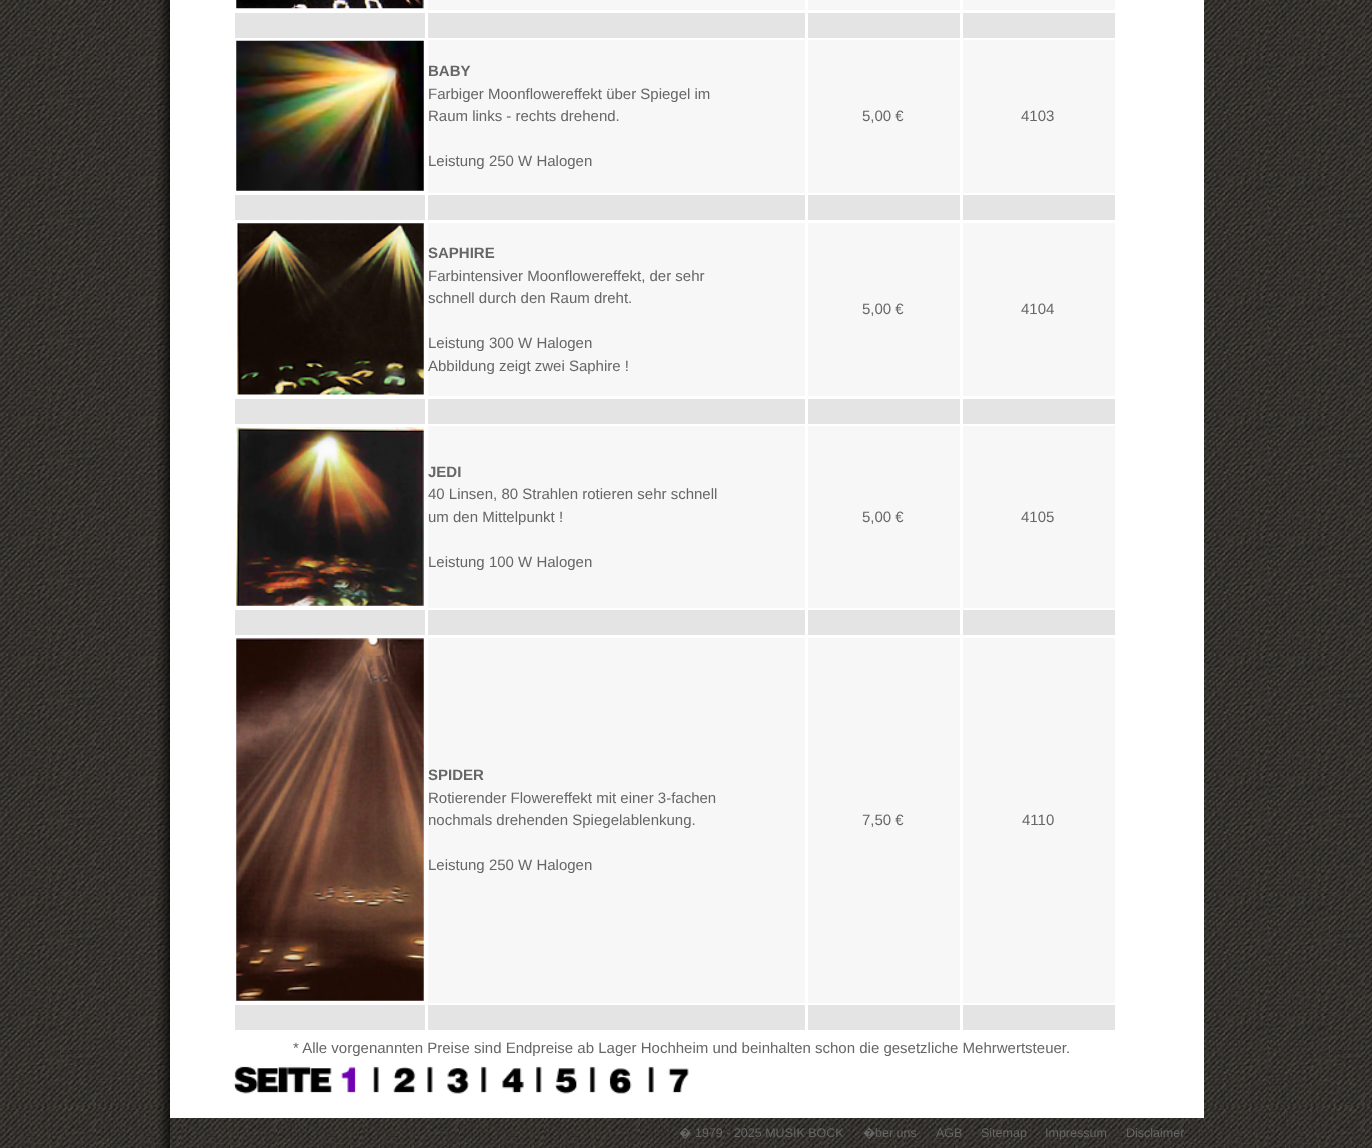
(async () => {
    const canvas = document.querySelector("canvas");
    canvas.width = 1372;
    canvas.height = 1148;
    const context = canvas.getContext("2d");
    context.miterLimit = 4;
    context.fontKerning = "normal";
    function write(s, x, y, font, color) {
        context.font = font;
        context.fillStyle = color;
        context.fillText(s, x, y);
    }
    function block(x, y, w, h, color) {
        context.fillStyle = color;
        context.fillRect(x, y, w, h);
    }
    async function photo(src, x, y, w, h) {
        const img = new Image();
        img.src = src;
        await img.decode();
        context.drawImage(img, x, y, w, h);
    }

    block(0, 0, 1372, 1148, "rgb(255, 255, 255)");
    await photo("media/1.png", 0, 0, 1372, 1148);
    await photo("media/2.png", 157, 0, 13, 1117);
    block(170, 0, 1034, 1118, "rgb(255, 255, 255)");
    await photo("media/3.png", 236, 0, 188, 9);
    block(428, 0, 377, 10, "rgb(247, 247, 247)");
    block(808, 0, 152, 10, "rgb(247, 247, 247)");
    block(963, 0, 152, 10, "rgb(247, 247, 247)");
    block(235, 13, 190, 25, "rgb(228, 228, 228)");
    block(428, 13, 377, 25, "rgb(228, 228, 228)");
    block(808, 13, 152, 25, "rgb(228, 228, 228)");
    block(963, 13, 152, 25, "rgb(228, 228, 228)");
    await photo("media/4.png", 236, 40, 188, 151);
    block(428, 40, 377, 153, "rgb(247, 247, 247)");
    write("BABY", 428, 76, "bold 15px Liberation Sans", "rgb(102, 102, 102)");
    write("Farbiger Moonflowereffekt über Spiegel im", 428, 99, "15px Liberation Sans", "rgb(102, 102, 102)");
    write("Raum links - rechts drehend.", 428, 121, "15px Liberation Sans", "rgb(102, 102, 102)");
    write("Leistung 250 W Halogen", 428, 166, "15px Liberation Sans", "rgb(102, 102, 102)");
    block(808, 40, 152, 153, "rgb(247, 247, 247)");
    write("5,00 €", 862, 121, "15px Liberation Sans", "rgb(102, 102, 102)");
    block(963, 40, 152, 153, "rgb(247, 247, 247)");
    write("4103", 1021, 121, "15px Liberation Sans", "rgb(102, 102, 102)");
    block(235, 195, 190, 25, "rgb(228, 228, 228)");
    block(428, 195, 377, 25, "rgb(228, 228, 228)");
    block(808, 195, 152, 25, "rgb(228, 228, 228)");
    block(963, 195, 152, 25, "rgb(228, 228, 228)");
    await photo("media/5.png", 236, 223, 188, 172);
    block(428, 223, 377, 173, "rgb(247, 247, 247)");
    write("SAPHIRE", 428, 258, "bold 15px Liberation Sans", "rgb(102, 102, 102)");
    write("Farbintensiver Moonflowereffekt, der sehr", 428, 281, "15px Liberation Sans", "rgb(102, 102, 102)");
    write("schnell durch den Raum dreht.", 428, 303, "15px Liberation Sans", "rgb(102, 102, 102)");
    write("Leistung 300 W Halogen", 428, 348, "15px Liberation Sans", "rgb(102, 102, 102)");
    write("Abbildung zeigt zwei Saphire !", 428, 371, "15px Liberation Sans", "rgb(102, 102, 102)");
    block(808, 223, 152, 173, "rgb(247, 247, 247)");
    write("5,00 €", 862, 314, "15px Liberation Sans", "rgb(102, 102, 102)");
    block(963, 223, 152, 173, "rgb(247, 247, 247)");
    write("4104", 1021, 314, "15px Liberation Sans", "rgb(102, 102, 102)");
    block(235, 399, 190, 25, "rgb(228, 228, 228)");
    block(428, 399, 377, 25, "rgb(228, 228, 228)");
    block(808, 399, 152, 25, "rgb(228, 228, 228)");
    block(963, 399, 152, 25, "rgb(228, 228, 228)");
    await photo("media/6.png", 236, 427, 188, 179);
    block(428, 426, 377, 182, "rgb(247, 247, 247)");
    write("JEDI", 428, 477, "bold 15px Liberation Sans", "rgb(102, 102, 102)");
    write("40 Linsen, 80 Strahlen rotieren sehr schnell", 428, 499, "15px Liberation Sans", "rgb(102, 102, 102)");
    write("um den Mittelpunkt !", 428, 522, "15px Liberation Sans", "rgb(102, 102, 102)");
    write("Leistung 100 W Halogen", 428, 567, "15px Liberation Sans", "rgb(102, 102, 102)");
    block(808, 426, 152, 182, "rgb(247, 247, 247)");
    write("5,00 €", 862, 522, "15px Liberation Sans", "rgb(102, 102, 102)");
    block(963, 426, 152, 182, "rgb(247, 247, 247)");
    write("4105", 1021, 522, "15px Liberation Sans", "rgb(102, 102, 102)");
    block(235, 610, 190, 25, "rgb(228, 228, 228)");
    block(428, 610, 377, 25, "rgb(228, 228, 228)");
    block(808, 610, 152, 25, "rgb(228, 228, 228)");
    block(963, 610, 152, 25, "rgb(228, 228, 228)");
    await photo("media/7.png", 236, 638, 188, 363);
    block(428, 638, 377, 365, "rgb(247, 247, 247)");
    write("SPIDER", 428, 780, "bold 15px Liberation Sans", "rgb(102, 102, 102)");
    write("Rotierender Flowereffekt mit einer 3-fachen", 428, 803, "15px Liberation Sans", "rgb(102, 102, 102)");
    write("nochmals drehenden Spiegelablenkung.", 428, 825, "15px Liberation Sans", "rgb(102, 102, 102)");
    write("Leistung 250 W Halogen", 428, 870, "15px Liberation Sans", "rgb(102, 102, 102)");
    block(808, 638, 152, 365, "rgb(247, 247, 247)");
    write("7,50 €", 862, 825, "15px Liberation Sans", "rgb(102, 102, 102)");
    block(963, 638, 152, 365, "rgb(247, 247, 247)");
    write("4110", 1022, 825, "15px Liberation Sans", "rgb(102, 102, 102)");
    block(235, 1005, 190, 25, "rgb(228, 228, 228)");
    block(428, 1005, 377, 25, "rgb(228, 228, 228)");
    block(808, 1005, 152, 25, "rgb(228, 228, 228)");
    block(963, 1005, 152, 25, "rgb(228, 228, 228)");
    write("* Alle vorgenannten Preise sind Endpreise ab Lager Hochheim und beinhalten schon die gesetzliche Mehrwertsteuer.", 293, 1053, "15px Liberation Sans", "rgb(102, 102, 102)");
    await photo("media/8.png", 233, 1066, 99, 28);
    await photo("media/9.png", 341, 1066, 15, 27);
    await photo("media/10.png", 373, 1066, 6, 27);
    await photo("media/11.png", 393, 1067, 23, 26);
    await photo("media/12.png", 427, 1066, 6, 27);
    await photo("media/13.png", 447, 1068, 22, 26);
    await photo("media/14.png", 481, 1066, 6, 27);
    await photo("media/15.png", 502, 1068, 22, 25);
    await photo("media/14.png", 536, 1066, 6, 27);
    await photo("media/16.png", 555, 1068, 22, 26);
    await photo("media/17.png", 589, 1066, 7, 27);
    await photo("media/18.png", 609, 1068, 23, 26);
    await photo("media/19.png", 648, 1066, 6, 27);
    await photo("media/20.png", 668, 1068, 21, 25);
    await photo("media/21.png", 158, 1117, 12, 31);
    write("�", 679, 1137, "12.5px Noto Sans", "rgb(102, 102, 102)");
    write("1979 - 2025 MUSIK BOCK", 695, 1137, "12.5px Liberation Sans", "rgb(102, 102, 102)");
    write("�", 863, 1137, "12.5px Noto Sans", "rgb(102, 102, 102)");
    write("ber uns", 875, 1137, "12.5px Liberation Sans", "rgb(102, 102, 102)");
    write("AGB", 936, 1137, "12.5px Liberation Sans", "rgb(102, 102, 102)");
    write("Sitemap", 981, 1137, "12.5px Liberation Sans", "rgb(102, 102, 102)");
    write("Impressum", 1045, 1137, "12.5px Liberation Sans", "rgb(102, 102, 102)");
    write("Disclaimer", 1126, 1137, "12.5px Liberation Sans", "rgb(102, 102, 102)");
})();
